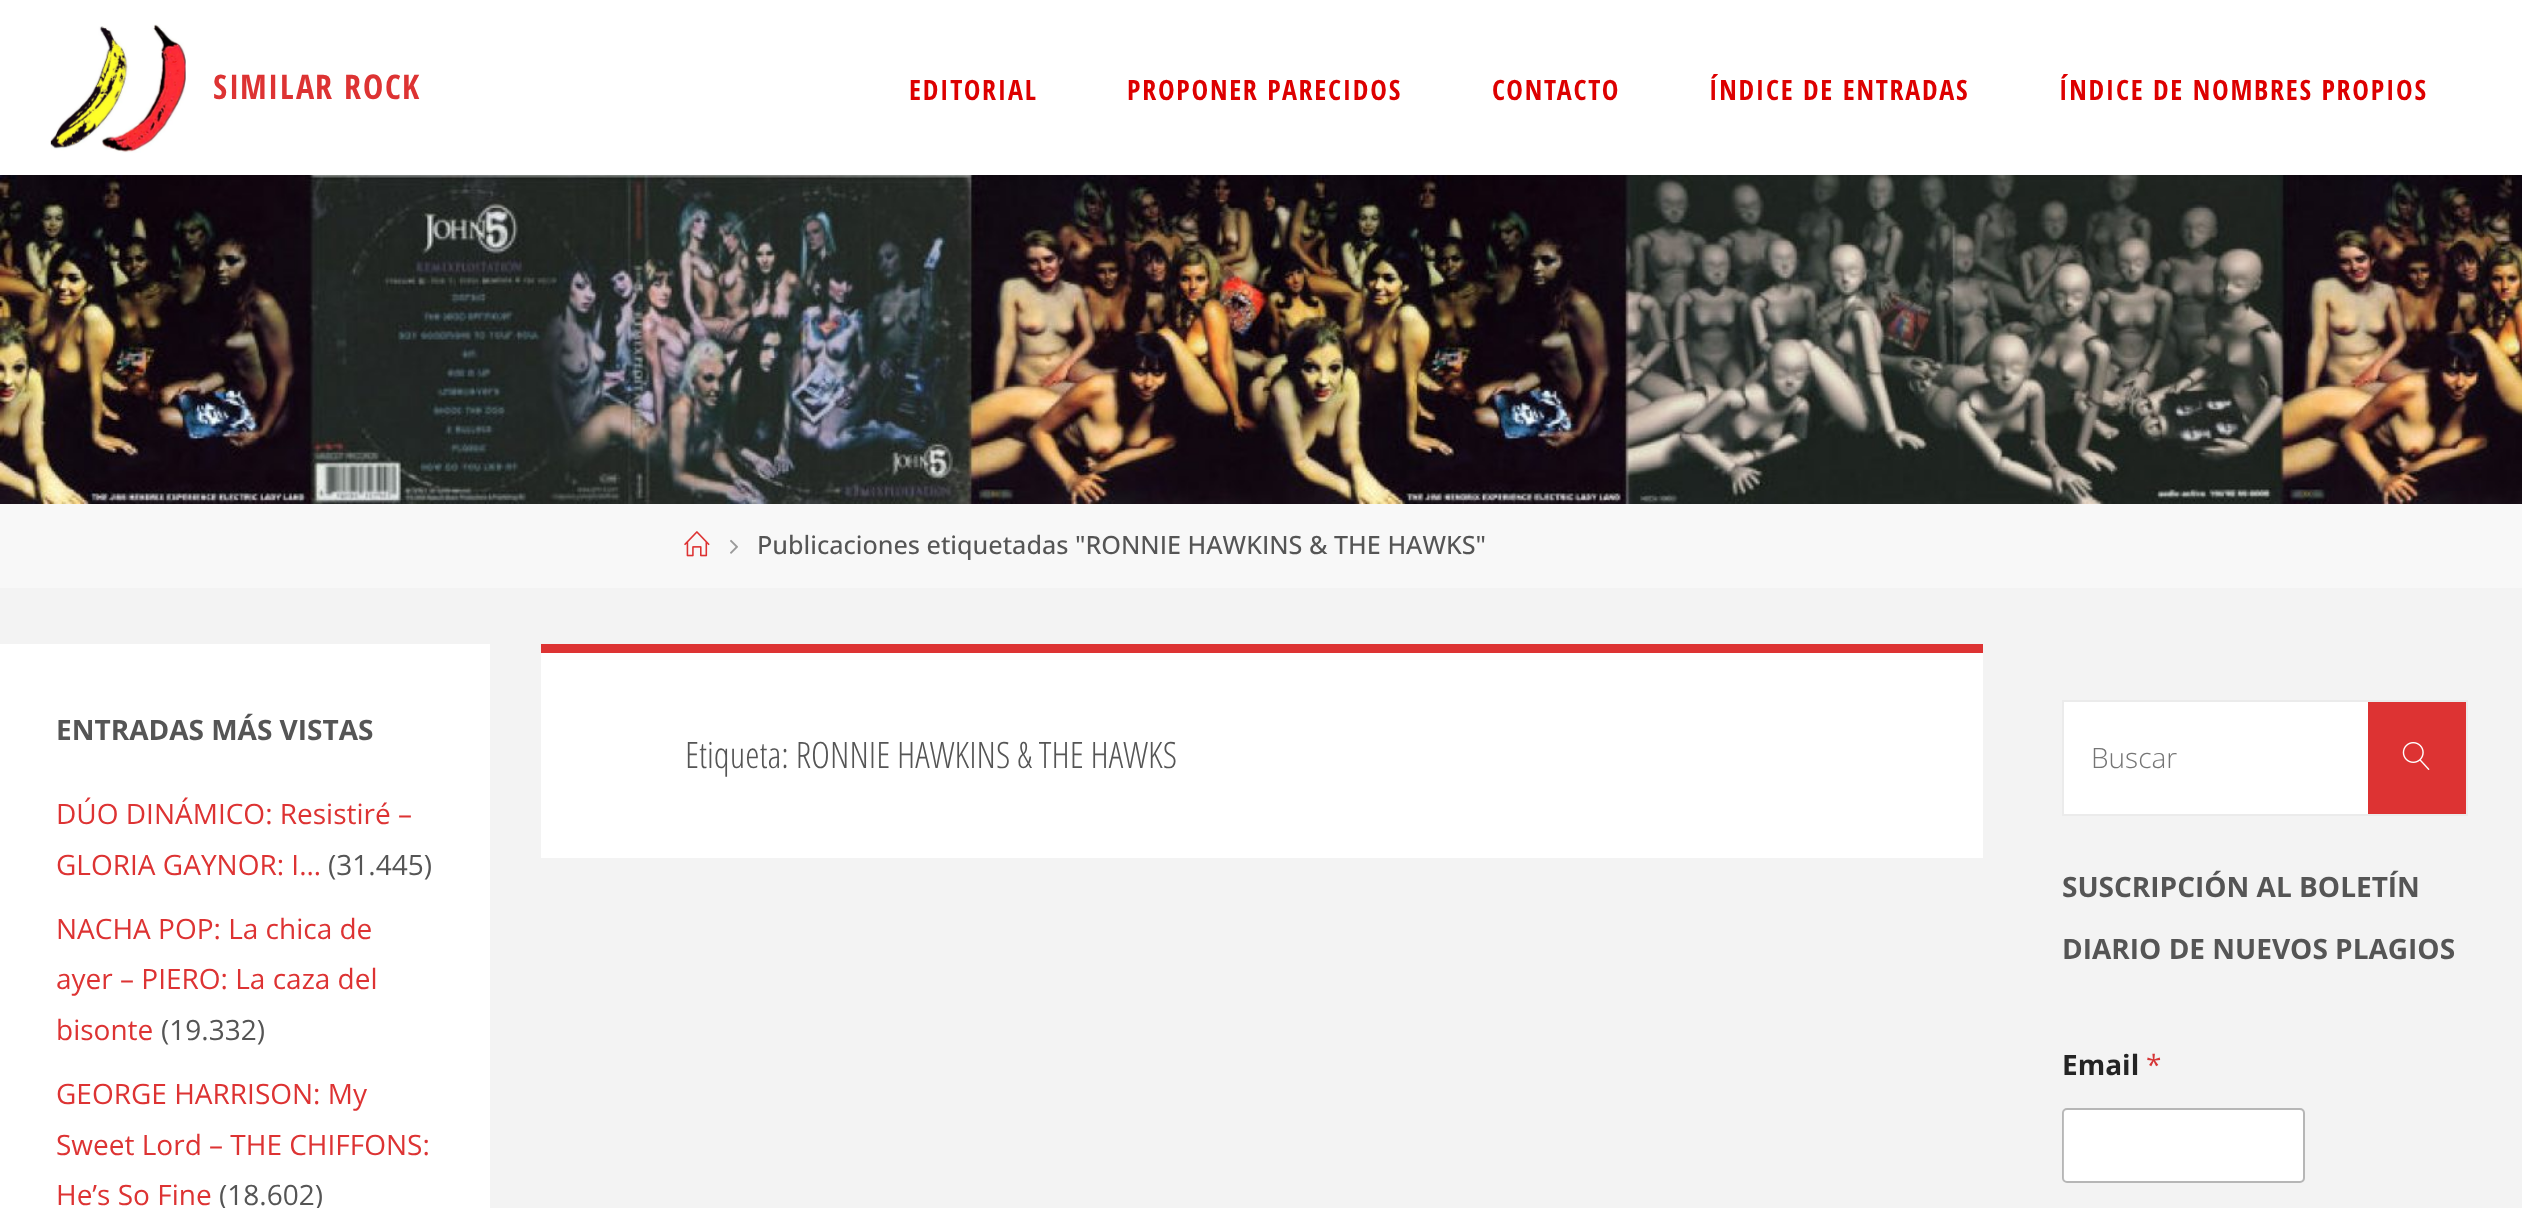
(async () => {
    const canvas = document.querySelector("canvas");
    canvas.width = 2522;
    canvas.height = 1208;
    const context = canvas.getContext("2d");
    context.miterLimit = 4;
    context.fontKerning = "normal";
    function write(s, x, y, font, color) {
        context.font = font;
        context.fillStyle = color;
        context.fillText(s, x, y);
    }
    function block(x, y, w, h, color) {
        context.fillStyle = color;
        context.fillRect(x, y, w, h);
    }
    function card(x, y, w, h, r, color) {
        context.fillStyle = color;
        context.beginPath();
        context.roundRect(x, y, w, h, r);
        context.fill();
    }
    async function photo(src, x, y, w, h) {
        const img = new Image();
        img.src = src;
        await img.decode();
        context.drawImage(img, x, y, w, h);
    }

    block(0, 0, 2522, 1208, "rgb(243, 243, 243)");
    await photo("media/2.png", 0, 175, 2522, 329);
    context.fillStyle = "rgba(0, 0, 0, 0.2)";
    context.filter = "blur(2.5px)";
    context.beginPath();
    context.rect(0, 0, 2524, 175);
    context.fill();
    context.filter = "none";
    block(0, 0, 2522, 175, "rgb(255, 255, 255)");
    await photo("media/1.png", 50, 24, 136, 129);
    write("S", 213, 99, "bold 34px Open Sans Condensed", "rgb(221, 51, 51)");
    write("I", 229, 99, "bold 34px Open Sans Condensed", "rgb(221, 51, 51)");
    write("M", 240, 99, "bold 34px Open Sans Condensed", "rgb(221, 51, 51)");
    write("I", 268, 99, "bold 34px Open Sans Condensed", "rgb(221, 51, 51)");
    write("L", 280, 99, "bold 34px Open Sans Condensed", "rgb(221, 51, 51)");
    write("A", 296, 99, "bold 34px Open Sans Condensed", "rgb(221, 51, 51)");
    write("R", 315, 99, "bold 34px Open Sans Condensed", "rgb(221, 51, 51)");
    write("R", 344, 99, "bold 34px Open Sans Condensed", "rgb(221, 51, 51)");
    write("O", 363, 99, "bold 34px Open Sans Condensed", "rgb(221, 51, 51)");
    write("C", 385, 99, "bold 34px Open Sans Condensed", "rgb(221, 51, 51)");
    write("K", 402, 99, "bold 34px Open Sans Condensed", "rgb(221, 51, 51)");
    context.letterSpacing = "1.75px";
    write("EDITORIAL", 909, 100, "bold 28px Open Sans Condensed", "rgb(221, 0, 0)");
    write("PROPONER PARECIDOS", 1127, 100, "bold 28px Open Sans Condensed", "rgb(221, 0, 0)");
    write("CONTACTO", 1492, 100, "bold 28px Open Sans Condensed", "rgb(221, 0, 0)");
    write("ÍNDICE DE ENTRADAS", 1709, 100, "bold 28px Open Sans Condensed", "rgb(221, 0, 0)");
    write("ÍNDICE DE NOMBRES PROPIOS", 2059, 100, "bold 28px Open Sans Condensed", "rgb(221, 0, 0)");
    block(0, 504, 2522, 84, "rgb(248, 248, 248)");
    await photo("media/3.png", 684, 531, 26, 26);
    await photo("media/4.png", 730, 539, 8, 15);
    context.letterSpacing = "0px";
    write("Publicaciones etiquetadas \"RONNIE HAWKINS & THE HAWKS\"", 757, 554, "500 25.2px Open Sans", "rgb(85, 85, 85)");
    block(0, 644, 490, 564, "rgb(255, 255, 255)");
    write("ENTRADAS MÁS VISTAS", 56, 740, "bold 28px Open Sans", "rgb(85, 85, 85)");
    write("DÚO DINÁMICO: Resistiré –", 56, 824, "28px Open Sans", "rgb(221, 51, 51)");
    write("GLORIA GAYNOR: I…", 56, 875, "28px Open Sans", "rgb(221, 51, 51)");
    write("(31.445)", 328, 875, "28px Open Sans", "rgb(85, 85, 85)");
    write("NACHA POP: La chica de", 56, 939, "28px Open Sans", "rgb(221, 51, 51)");
    write("ayer – PIERO: La caza del", 56, 989, "28px Open Sans", "rgb(221, 51, 51)");
    write("bisonte", 56, 1040, "28px Open Sans", "rgb(221, 51, 51)");
    write("(19.332)", 161, 1040, "28px Open Sans", "rgb(85, 85, 85)");
    write("GEORGE HARRISON: My", 56, 1104, "28px Open Sans", "rgb(221, 51, 51)");
    write("Sweet Lord – THE CHIFFONS:", 56, 1155, "28px Open Sans", "rgb(221, 51, 51)");
    write("He’s So Fine", 56, 1205, "28px Open Sans", "rgb(221, 51, 51)");
    write("(18.602)", 219, 1205, "28px Open Sans", "rgb(85, 85, 85)");
    block(541, 653, 1442, 205, "rgb(255, 255, 255)");
    block(541, 644, 1442, 9, "rgb(221, 51, 51)");
    write("Etiqueta: RONNIE HAWKINS & THE HAWKS", 685, 768, "300 36.4px Open Sans Condensed", "rgb(85, 85, 85)");
    block(2064, 702, 304, 112, "rgb(255, 255, 255)");
    context.strokeStyle = "rgb(235, 235, 235)";
    context.lineWidth = 2;
    context.strokeRect(2063, 701, 404, 114);
    block(2368, 702, 98, 112, "rgb(221, 51, 51)");
    write("Buscar", 2091, 768, "300 28px Open Sans", "rgb(117, 117, 117)");
    await photo("media/5.png", 2402, 742, 28, 28);
    write("SUSCRIPCIÓN AL BOLETÍN", 2062, 897, "bold 28px Open Sans", "rgb(85, 85, 85)");
    write("DIARIO DE NUEVOS PLAGIOS", 2062, 959, "bold 28px Open Sans", "rgb(85, 85, 85)");
    write("Email", 2062, 1075, "bold 28px Open Sans", "rgb(36, 36, 36)");
    write("*", 2146, 1075, "28px Open Sans", "rgb(214, 54, 55)");
    card(2063, 1110, 240, 71, 4, "rgb(255, 255, 255)");
    context.beginPath();
    context.roundRect(2063, 1109, 241, 73, 4);
    context.strokeStyle = "rgba(0, 0, 0, 0.25)";
    context.stroke();
})();
